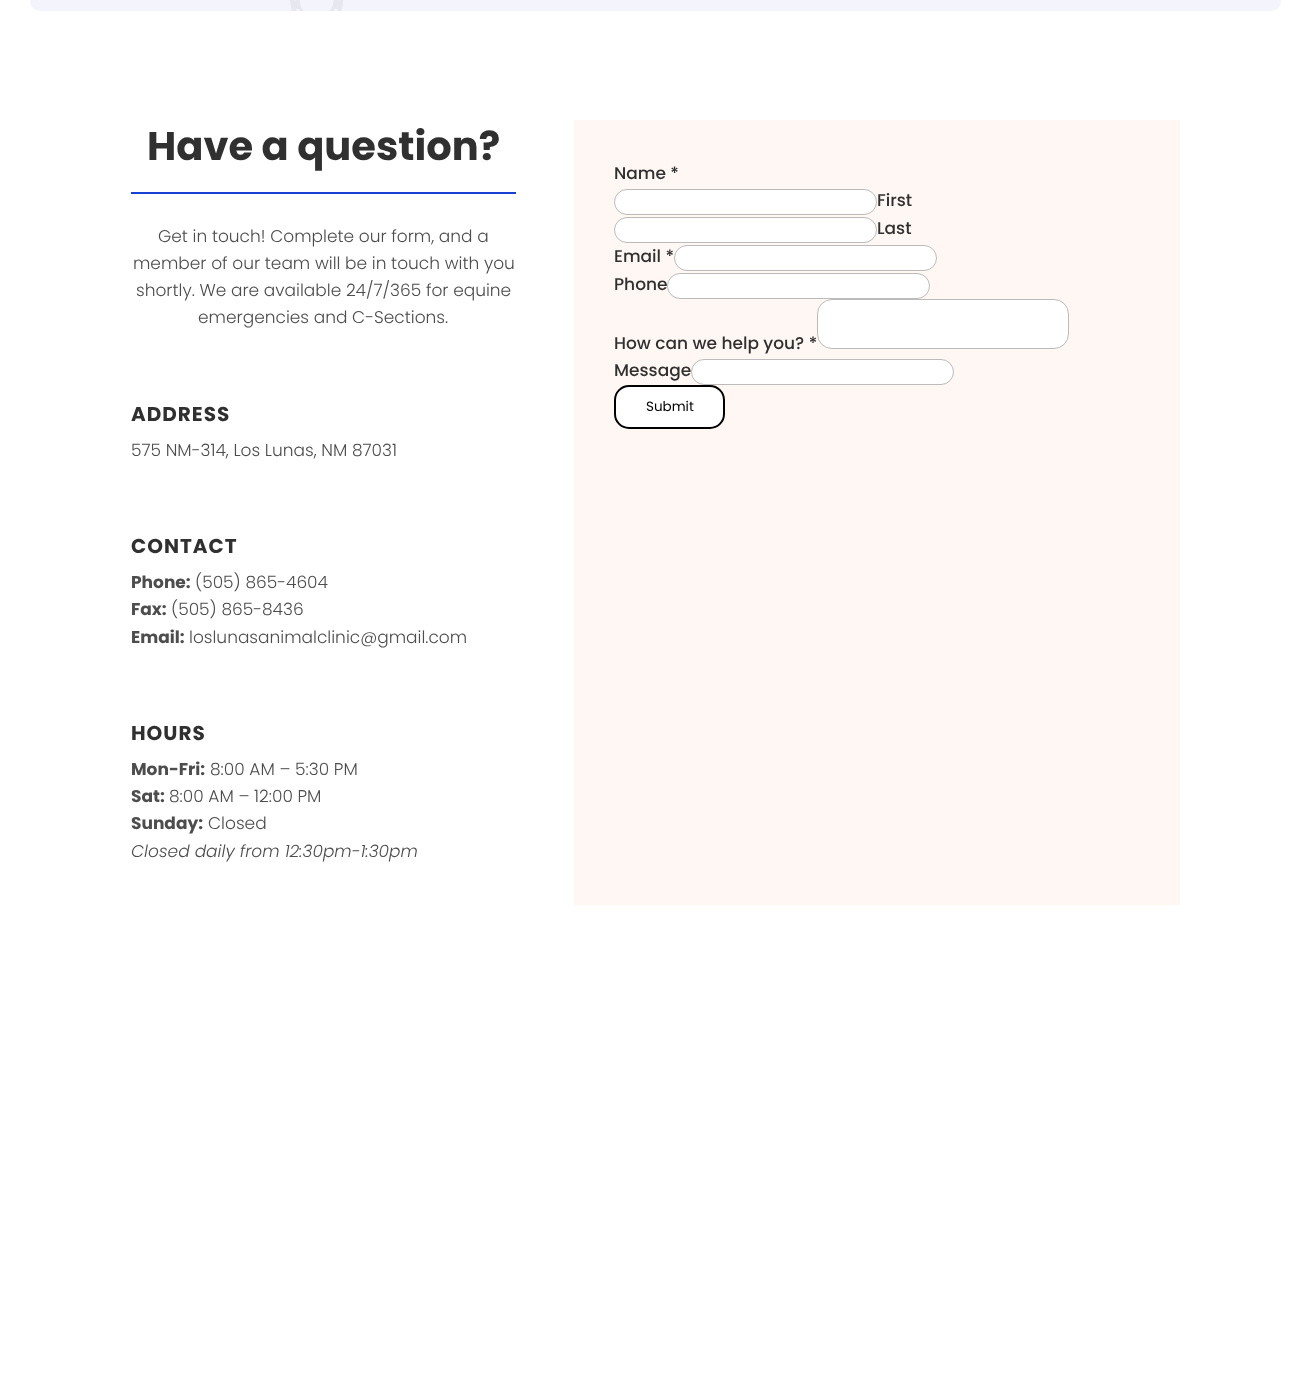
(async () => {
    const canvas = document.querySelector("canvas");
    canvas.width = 1311;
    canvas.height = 1373;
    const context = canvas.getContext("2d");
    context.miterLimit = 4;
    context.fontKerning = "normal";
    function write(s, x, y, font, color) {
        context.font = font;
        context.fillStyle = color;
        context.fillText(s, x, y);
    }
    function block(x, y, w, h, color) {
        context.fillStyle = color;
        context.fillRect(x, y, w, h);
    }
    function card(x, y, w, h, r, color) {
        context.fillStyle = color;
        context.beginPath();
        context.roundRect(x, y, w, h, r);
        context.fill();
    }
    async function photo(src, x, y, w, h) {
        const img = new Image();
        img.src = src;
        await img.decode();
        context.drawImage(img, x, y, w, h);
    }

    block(0, 0, 1311, 1373, "rgb(255, 255, 255)");
    card(30, -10, 1251, 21, 10, "rgb(244, 245, 252)");
    await photo("media/1.png", 290, 0, 53, 11);
    block(131, 192, 385, 2, "rgb(25, 65, 212)");
    write("Have a question?", 147, 160, "bold 40px Poppins", "rgb(48, 48, 48)");
    write("Get in touch! Complete our form, and a", 158, 242, "300 17px Poppins", "rgb(77, 77, 77)");
    write("member of our team will be in touch with you", 133, 269, "300 17px Poppins", "rgb(77, 77, 77)");
    write("shortly. We are available 24/7/365 for equine", 136, 296, "300 17px Poppins", "rgb(77, 77, 77)");
    write("emergencies and C-Sections.", 198, 323, "300 17px Poppins", "rgb(77, 77, 77)");
    context.letterSpacing = "1px";
    write("ADDRESS", 131, 421, "bold 20px Poppins", "rgb(48, 48, 48)");
    context.letterSpacing = "0px";
    write("575 NM-314, Los Lunas, NM 87031", 131, 456, "300 17px Poppins", "rgb(77, 77, 77)");
    context.letterSpacing = "1px";
    write("CONTACT", 131, 553, "bold 20px Poppins", "rgb(48, 48, 48)");
    context.letterSpacing = "0px";
    write("Phone:", 131, 588, "bold 17px Poppins", "rgb(77, 77, 77)");
    write("(505) 865-4604", 195, 588, "300 17px Poppins", "rgb(77, 77, 77)");
    write("Fax:", 131, 615, "bold 17px Poppins", "rgb(77, 77, 77)");
    write("(505) 865-8436", 171, 615, "300 17px Poppins", "rgb(77, 77, 77)");
    write("Email:", 131, 643, "bold 17px Poppins", "rgb(77, 77, 77)");
    write("loslunasanimalclinic@gmail.com", 189, 643, "300 17px Poppins", "rgb(77, 77, 77)");
    context.letterSpacing = "1px";
    write("HOURS", 131, 740, "bold 20px Poppins", "rgb(48, 48, 48)");
    context.letterSpacing = "0px";
    write("Mon-Fri:", 131, 775, "bold 17px Poppins", "rgb(77, 77, 77)");
    write("8:00 AM – 5:30 PM", 210, 775, "300 17px Poppins", "rgb(77, 77, 77)");
    write("Sat:", 131, 802, "bold 17px Poppins", "rgb(77, 77, 77)");
    write("8:00 AM – 12:00 PM", 169, 802, "300 17px Poppins", "rgb(77, 77, 77)");
    write("Sunday:", 131, 829, "bold 17px Poppins", "rgb(77, 77, 77)");
    write("Closed", 208, 829, "300 17px Poppins", "rgb(77, 77, 77)");
    write("Closed daily from 12:30pm-1:30pm", 131, 857, "italic 300 17px Poppins", "rgb(77, 77, 77)");
    block(574, 120, 606, 785, "rgb(255, 247, 243)");
    write("Name *", 614, 179, "500 17px Poppins", "rgb(48, 48, 48)");
    context.fillStyle = "rgb(255, 255, 255)";
    context.beginPath();
    context.roundRect(614.5, 189.5, 262, 25, 12.5);
    context.fill();
    context.strokeStyle = "rgb(187, 187, 187)";
    context.stroke();
    write("First", 877, 206, "500 17px Poppins", "rgb(48, 48, 48)");
    context.fillStyle = "rgb(255, 255, 255)";
    context.beginPath();
    context.roundRect(614.5, 217.5, 262, 25, 12.5);
    context.fill();
    context.stroke();
    write("Last", 877, 234, "500 17px Poppins", "rgb(48, 48, 48)");
    write("Email *", 614, 262, "500 17px Poppins", "rgb(48, 48, 48)");
    context.fillStyle = "rgb(255, 255, 255)";
    context.beginPath();
    context.roundRect(674.5, 245.5, 262, 25, 12.5);
    context.fill();
    context.stroke();
    write("Phone", 614, 290, "500 17px Poppins", "rgb(48, 48, 48)");
    context.fillStyle = "rgb(255, 255, 255)";
    context.beginPath();
    context.roundRect(667.5, 273.5, 262, 25, 12.5);
    context.fill();
    context.stroke();
    write("How can we help you? *", 614, 349, "500 17px Poppins", "rgb(48, 48, 48)");
    context.fillStyle = "rgb(255, 255, 255)";
    context.beginPath();
    context.roundRect(817.5, 299.5, 251, 49, 14.5);
    context.fill();
    context.stroke();
    write("Message", 614, 376, "500 17px Poppins", "rgb(48, 48, 48)");
    context.fillStyle = "rgb(255, 255, 255)";
    context.beginPath();
    context.roundRect(691.5, 359.5, 262, 25, 12.5);
    context.fill();
    context.stroke();
    context.beginPath();
    context.roundRect(615, 386, 109, 42, 14);
    context.fill();
    context.strokeStyle = "rgb(0, 0, 0)";
    context.lineWidth = 2;
    context.stroke();
    write("Submit", 646, 411, "13.5px Poppins", "rgb(0, 0, 0)");
})();
